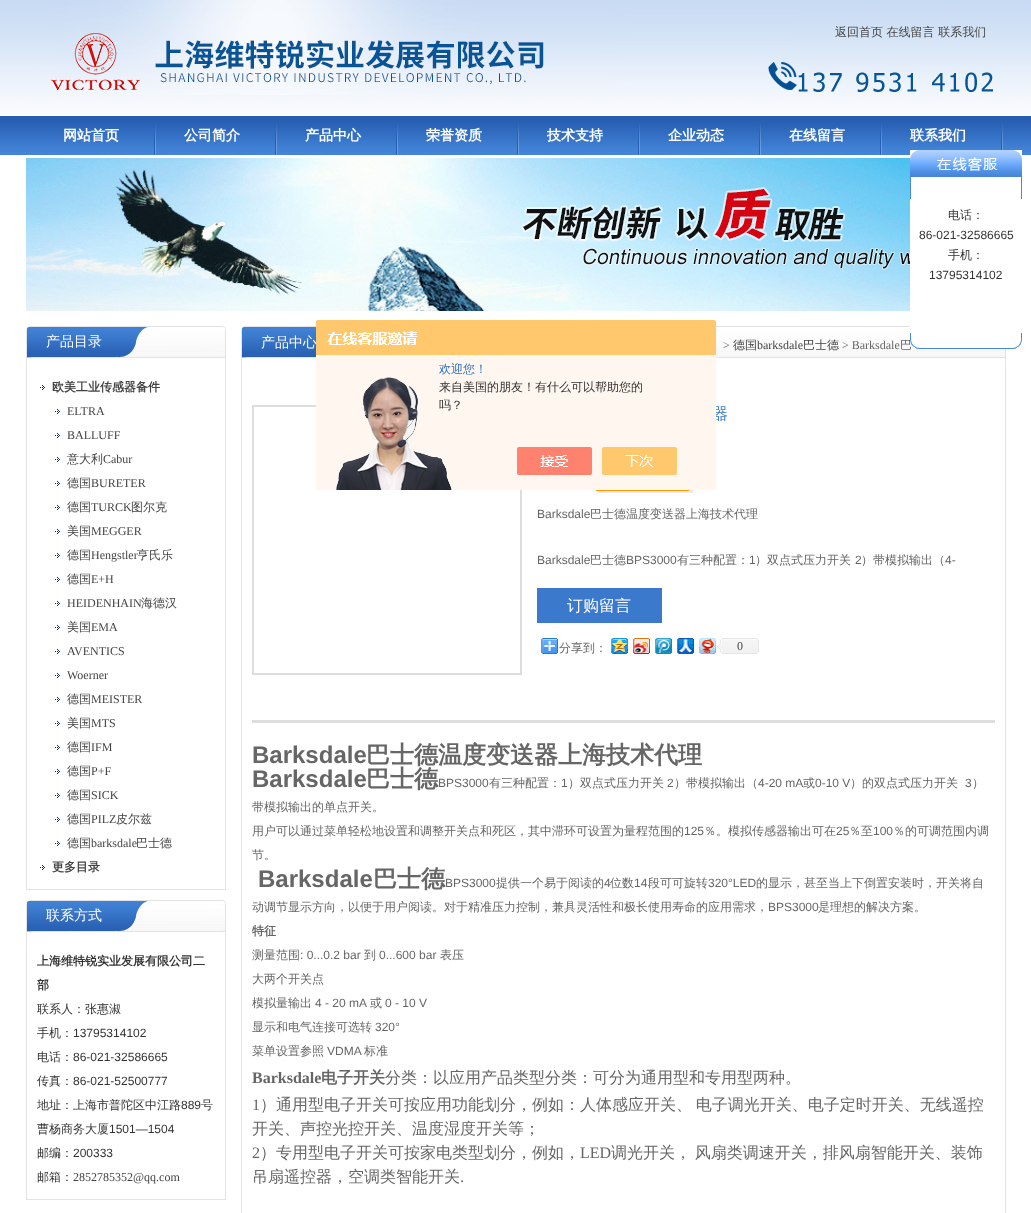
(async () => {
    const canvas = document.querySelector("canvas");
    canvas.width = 1031;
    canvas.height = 1213;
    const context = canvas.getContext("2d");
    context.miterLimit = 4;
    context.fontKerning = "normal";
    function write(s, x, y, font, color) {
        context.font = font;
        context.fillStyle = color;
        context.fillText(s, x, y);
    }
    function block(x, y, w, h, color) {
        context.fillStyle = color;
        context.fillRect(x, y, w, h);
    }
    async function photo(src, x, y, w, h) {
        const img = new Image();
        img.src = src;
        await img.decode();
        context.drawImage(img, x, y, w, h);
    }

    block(0, 0, 1031, 1213, "rgb(255, 255, 255)");
    await photo("media/1.png", 0, 0, 1031, 116);
    await photo("media/2.png", 51, 0, 746, 95);
    write("返回首页 在线留言 联系我们", 835, 36, "500 12px WenQuanYi Zen Hei", "rgb(68, 68, 68)");
    await photo("media/3.png", 798, 72, 195, 20);
    await photo("media/4.png", 0, 116, 1031, 39);
    await photo("media/5.png", 154, 124, 2, 31);
    write("网站首页", 63, 140, "bold 14px WenQuanYi Zen Hei", "rgb(255, 255, 255)");
    await photo("media/5.png", 275, 124, 2, 31);
    write("公司简介", 184, 140, "bold 14px WenQuanYi Zen Hei", "rgb(255, 255, 255)");
    await photo("media/5.png", 396, 124, 2, 31);
    write("产品中心", 305, 140, "bold 14px WenQuanYi Zen Hei", "rgb(255, 255, 255)");
    await photo("media/5.png", 517, 124, 2, 31);
    write("荣誉资质", 426, 140, "bold 14px WenQuanYi Zen Hei", "rgb(255, 255, 255)");
    await photo("media/5.png", 638, 124, 2, 31);
    write("技术支持", 547, 140, "bold 14px WenQuanYi Zen Hei", "rgb(255, 255, 255)");
    await photo("media/5.png", 759, 124, 2, 31);
    write("企业动态", 668, 140, "bold 14px WenQuanYi Zen Hei", "rgb(255, 255, 255)");
    await photo("media/5.png", 880, 124, 2, 31);
    write("在线留言", 789, 140, "bold 14px WenQuanYi Zen Hei", "rgb(255, 255, 255)");
    await photo("media/6.png", 1001, 124, 2, 26);
    write("联系我们", 910, 140, "bold 14px WenQuanYi Zen Hei", "rgb(255, 255, 255)");
    await photo("media/7.png", 26, 158, 884, 153);
    await photo("media/8.png", 910, 150, 112, 49);
    await photo("media/12.png", 241, 326, 765, 39);
    block(910, 326, 96, 7, "rgb(255, 255, 255)");
    write("电话：", 948, 219, "500 12px WenQuanYi Zen Hei", "rgb(51, 51, 51)");
    write("86-021-32586665", 919, 239, "12px Liberation Sans", "rgb(51, 51, 51)");
    write("手机：", 948, 259, "500 12px WenQuanYi Zen Hei", "rgb(51, 51, 51)");
    write("13795314102", 929, 279, "12px Liberation Sans", "rgb(51, 51, 51)");
    write("巴", 900, 349, "500 12px WenQuanYi Zen Hei", "rgb(102, 102, 102)");
    await photo("media/9.png", 910, 333, 112, 16);
    await photo("media/10.png", 26, 326, 200, 39);
    write("产品目录", 46, 346, "500 14px WenQuanYi Zen Hei", "rgb(255, 255, 255)");
    block(225, 365, 1, 525, "rgb(227, 227, 227)");
    block(26, 889, 200, 1, "rgb(227, 227, 227)");
    block(26, 365, 1, 525, "rgb(227, 227, 227)");
    await photo("media/11.png", 40, 385, 5, 5);
    write("欧美工业传感器备件", 52, 391, "bold 12px WenQuanYi Zen Hei", "rgb(68, 68, 68)");
    await photo("media/11.png", 55, 409, 5, 5);
    write("ELTRA", 67, 415, "12px Liberation Serif", "rgb(68, 68, 68)");
    await photo("media/11.png", 55, 433, 5, 5);
    write("BALLUFF", 67, 439, "12px Liberation Serif", "rgb(68, 68, 68)");
    await photo("media/11.png", 55, 457, 5, 5);
    write("意大利", 67, 463, "500 12px WenQuanYi Zen Hei", "rgb(68, 68, 68)");
    write("Cabur", 103, 463, "12px Liberation Serif", "rgb(68, 68, 68)");
    await photo("media/11.png", 55, 481, 5, 5);
    write("德国", 67, 487, "500 12px WenQuanYi Zen Hei", "rgb(68, 68, 68)");
    write("BURETER", 91, 487, "12px Liberation Serif", "rgb(68, 68, 68)");
    await photo("media/11.png", 55, 505, 5, 5);
    write("德国", 67, 511, "500 12px WenQuanYi Zen Hei", "rgb(68, 68, 68)");
    write("TURCK", 91, 511, "12px Liberation Serif", "rgb(68, 68, 68)");
    write("图尔克", 131, 511, "500 12px WenQuanYi Zen Hei", "rgb(68, 68, 68)");
    await photo("media/11.png", 55, 529, 5, 5);
    write("美国", 67, 535, "500 12px WenQuanYi Zen Hei", "rgb(68, 68, 68)");
    write("MEGGER", 91, 535, "12px Liberation Serif", "rgb(68, 68, 68)");
    await photo("media/11.png", 55, 553, 5, 5);
    write("德国", 67, 559, "500 12px WenQuanYi Zen Hei", "rgb(68, 68, 68)");
    write("Hengstler", 91, 559, "12px Liberation Serif", "rgb(68, 68, 68)");
    write("亨氏乐", 137, 559, "500 12px WenQuanYi Zen Hei", "rgb(68, 68, 68)");
    await photo("media/11.png", 55, 577, 5, 5);
    write("德国", 67, 583, "500 12px WenQuanYi Zen Hei", "rgb(68, 68, 68)");
    write("E+H", 91, 583, "12px Liberation Serif", "rgb(68, 68, 68)");
    await photo("media/11.png", 55, 601, 5, 5);
    write("HEIDENHAIN", 67, 607, "12px Liberation Serif", "rgb(68, 68, 68)");
    write("海德汉", 141, 607, "500 12px WenQuanYi Zen Hei", "rgb(68, 68, 68)");
    await photo("media/11.png", 55, 625, 5, 5);
    write("美国", 67, 631, "500 12px WenQuanYi Zen Hei", "rgb(68, 68, 68)");
    write("EMA", 91, 631, "12px Liberation Serif", "rgb(68, 68, 68)");
    await photo("media/11.png", 55, 649, 5, 5);
    write("AVENTICS", 67, 655, "12px Liberation Serif", "rgb(68, 68, 68)");
    await photo("media/11.png", 55, 673, 5, 5);
    write("Woerner", 67, 679, "12px Liberation Serif", "rgb(68, 68, 68)");
    await photo("media/11.png", 55, 697, 5, 5);
    write("德国", 67, 703, "500 12px WenQuanYi Zen Hei", "rgb(68, 68, 68)");
    write("MEISTER", 91, 703, "12px Liberation Serif", "rgb(68, 68, 68)");
    await photo("media/11.png", 55, 721, 5, 5);
    write("美国", 67, 727, "500 12px WenQuanYi Zen Hei", "rgb(68, 68, 68)");
    write("MTS", 91, 727, "12px Liberation Serif", "rgb(68, 68, 68)");
    await photo("media/11.png", 55, 745, 5, 5);
    write("德国", 67, 751, "500 12px WenQuanYi Zen Hei", "rgb(68, 68, 68)");
    write("IFM", 91, 751, "12px Liberation Serif", "rgb(68, 68, 68)");
    await photo("media/11.png", 55, 769, 5, 5);
    write("德国", 67, 775, "500 12px WenQuanYi Zen Hei", "rgb(68, 68, 68)");
    write("P+F", 91, 775, "12px Liberation Serif", "rgb(68, 68, 68)");
    await photo("media/11.png", 55, 793, 5, 5);
    write("德国", 67, 799, "500 12px WenQuanYi Zen Hei", "rgb(68, 68, 68)");
    write("SICK", 91, 799, "12px Liberation Serif", "rgb(68, 68, 68)");
    await photo("media/11.png", 55, 817, 5, 5);
    write("德国", 67, 823, "500 12px WenQuanYi Zen Hei", "rgb(68, 68, 68)");
    write("PILZ", 91, 823, "12px Liberation Serif", "rgb(68, 68, 68)");
    write("皮尔兹", 116, 823, "500 12px WenQuanYi Zen Hei", "rgb(68, 68, 68)");
    await photo("media/11.png", 55, 841, 5, 5);
    write("德国", 67, 847, "500 12px WenQuanYi Zen Hei", "rgb(68, 68, 68)");
    write("barksdale", 91, 847, "12px Liberation Serif", "rgb(68, 68, 68)");
    write("巴士德", 136, 847, "500 12px WenQuanYi Zen Hei", "rgb(68, 68, 68)");
    await photo("media/11.png", 40, 865, 5, 5);
    write("更多目录", 52, 871, "bold 12px WenQuanYi Zen Hei", "rgb(68, 68, 68)");
    await photo("media/10.png", 26, 900, 200, 39);
    write("联系方式", 46, 920, "500 14px WenQuanYi Zen Hei", "rgb(255, 255, 255)");
    block(225, 939, 1, 261, "rgb(227, 227, 227)");
    block(26, 1199, 200, 1, "rgb(227, 227, 227)");
    block(26, 939, 1, 261, "rgb(227, 227, 227)");
    write("上海维特锐实业发展有限公司二", 37, 965, "bold 12px WenQuanYi Zen Hei", "rgb(51, 51, 51)");
    write("部", 37, 989, "bold 12px WenQuanYi Zen Hei", "rgb(51, 51, 51)");
    write("联系人：张惠淑", 37, 1013, "500 12px WenQuanYi Zen Hei", "rgb(51, 51, 51)");
    write("手机：", 37, 1037, "500 12px WenQuanYi Zen Hei", "rgb(51, 51, 51)");
    write("13795314102", 73, 1037, "12px Liberation Sans", "rgb(51, 51, 51)");
    write("电话：", 37, 1061, "500 12px WenQuanYi Zen Hei", "rgb(51, 51, 51)");
    write("86-021-32586665", 73, 1061, "12px Liberation Sans", "rgb(51, 51, 51)");
    write("传真：", 37, 1085, "500 12px WenQuanYi Zen Hei", "rgb(51, 51, 51)");
    write("86-021-52500777", 73, 1085, "12px Liberation Sans", "rgb(51, 51, 51)");
    write("地址：上海市普陀区中江路", 37, 1109, "500 12px WenQuanYi Zen Hei", "rgb(51, 51, 51)");
    write("889", 181, 1109, "12px Liberation Sans", "rgb(51, 51, 51)");
    write("号", 201, 1109, "500 12px WenQuanYi Zen Hei", "rgb(51, 51, 51)");
    write("曹杨商务大厦", 37, 1133, "500 12px WenQuanYi Zen Hei", "rgb(51, 51, 51)");
    write("1501—1504", 109, 1133, "12px Liberation Sans", "rgb(51, 51, 51)");
    write("邮编：", 37, 1157, "500 12px WenQuanYi Zen Hei", "rgb(51, 51, 51)");
    write("200333", 73, 1157, "12px Liberation Sans", "rgb(51, 51, 51)");
    write("邮箱：", 37, 1181, "500 12px WenQuanYi Zen Hei", "rgb(51, 51, 51)");
    write("2852785352@qq.com", 73, 1181, "12px Liberation Serif", "rgb(68, 68, 68)");
    write("产品中心", 261, 347, "500 14px WenQuanYi Zen Hei", "rgb(255, 255, 255)");
    write(">", 723, 349, "12px Liberation Serif", "rgb(102, 102, 102)");
    write("德国", 733, 349, "500 12px WenQuanYi Zen Hei", "rgb(68, 68, 68)");
    write("barksdale", 757, 349, "12px Liberation Serif", "rgb(68, 68, 68)");
    write("巴士德", 803, 349, "500 12px WenQuanYi Zen Hei", "rgb(68, 68, 68)");
    write("> Barksdale", 842, 349, "12px Liberation Serif", "rgb(102, 102, 102)");
    block(1005, 365, 1, 848, "rgb(227, 227, 227)");
    block(241, 365, 1, 848, "rgb(227, 227, 227)");
    block(252, 720, 743, 3, "rgb(221, 221, 221)");
    context.strokeStyle = "rgb(221, 221, 221)";
    context.lineWidth = 2;
    context.strokeRect(253, 406, 268, 268);
    write("器", 712, 419, "500 16px WenQuanYi Zen Hei", "rgb(59, 121, 205)");
    await photo("media/13.png", 594, 490, 99, 3);
    write("Barksdale", 537, 518, "12px Liberation Sans", "rgb(102, 102, 102)");
    write("巴士德温度变送器上海技术代理", 590, 518, "500 12px WenQuanYi Zen Hei", "rgb(102, 102, 102)");
    write("Barksdale", 537, 564, "12px Liberation Sans", "rgb(102, 102, 102)");
    write("巴士德", 590, 564, "500 12px WenQuanYi Zen Hei", "rgb(102, 102, 102)");
    write("BPS3000", 626, 564, "12px Liberation Sans", "rgb(102, 102, 102)");
    write("有三种配置：", 677, 564, "500 12px WenQuanYi Zen Hei", "rgb(102, 102, 102)");
    write("1", 749, 564, "12px Liberation Sans", "rgb(102, 102, 102)");
    write("）双点式压力开关", 755, 564, "500 12px WenQuanYi Zen Hei", "rgb(102, 102, 102)");
    write("2", 855, 564, "12px Liberation Sans", "rgb(102, 102, 102)");
    write("）带模拟输出（", 861, 564, "500 12px WenQuanYi Zen Hei", "rgb(102, 102, 102)");
    write("4-", 945, 564, "12px Liberation Sans", "rgb(102, 102, 102)");
    block(537, 588, 125, 35, "rgb(59, 121, 205)");
    write("订购留言", 567, 611, "500 16px WenQuanYi Zen Hei", "rgb(255, 255, 255)");
    await photo("media/14.png", 541, 638, 17, 16);
    write("分享到：", 559, 652, "500 12px WenQuanYi Zen Hei", "rgb(102, 102, 102)");
    await photo("media/15.png", 611, 638, 17, 16);
    await photo("media/16.png", 633, 638, 17, 16);
    await photo("media/17.png", 655, 638, 17, 16);
    await photo("media/18.png", 677, 638, 17, 16);
    await photo("media/19.png", 699, 638, 17, 16);
    await photo("media/20.png", 717, 638, 42, 16);
    write("0", 737, 650, "12px Liberation Serif", "rgb(68, 68, 68)");
    write("Barksdale", 252, 763, "bold 24px Liberation Sans", "rgb(102, 102, 102)");
    write("巴士德温度变送器上海技术代理", 366, 763, "bold 24px WenQuanYi Zen Hei", "rgb(102, 102, 102)");
    write("Barksdale", 252, 787, "bold 24px Liberation Sans", "rgb(102, 102, 102)");
    write("巴士德", 366, 787, "bold 24px WenQuanYi Zen Hei", "rgb(102, 102, 102)");
    write("BPS3000", 438, 787, "12px Liberation Sans", "rgb(102, 102, 102)");
    write("有三种配置：", 489, 787, "500 12px WenQuanYi Zen Hei", "rgb(102, 102, 102)");
    write("1", 561, 787, "12px Liberation Sans", "rgb(102, 102, 102)");
    write("）双点式压力开关", 568, 787, "500 12px WenQuanYi Zen Hei", "rgb(102, 102, 102)");
    write("2", 667, 787, "12px Liberation Sans", "rgb(102, 102, 102)");
    write("）带模拟输出（", 674, 787, "500 12px WenQuanYi Zen Hei", "rgb(102, 102, 102)");
    write("4-20 mA", 758, 787, "12px Liberation Sans", "rgb(102, 102, 102)");
    write("或", 803, 787, "500 12px WenQuanYi Zen Hei", "rgb(102, 102, 102)");
    write("0-10 V", 815, 787, "12px Liberation Sans", "rgb(102, 102, 102)");
    write("）的双点式压力开关", 850, 787, "500 12px WenQuanYi Zen Hei", "rgb(102, 102, 102)");
    write("3", 965, 787, "12px Liberation Sans", "rgb(102, 102, 102)");
    write("）", 972, 787, "500 12px WenQuanYi Zen Hei", "rgb(102, 102, 102)");
    write("带模拟输出的单点开关。", 252, 811, "500 12px WenQuanYi Zen Hei", "rgb(102, 102, 102)");
    write("用户可以通过菜单轻松地设置和调整开关点和死区，其中滞环可设置为量程范围的", 252, 835, "500 12px WenQuanYi Zen Hei", "rgb(102, 102, 102)");
    write("125", 684, 835, "12px Liberation Sans", "rgb(102, 102, 102)");
    write("％。模拟传感器输出可在", 704, 835, "500 12px WenQuanYi Zen Hei", "rgb(102, 102, 102)");
    write("25", 836, 835, "12px Liberation Sans", "rgb(102, 102, 102)");
    write("％至", 849, 835, "500 12px WenQuanYi Zen Hei", "rgb(102, 102, 102)");
    write("100", 873, 835, "12px Liberation Sans", "rgb(102, 102, 102)");
    write("％的可调范围内调", 893, 835, "500 12px WenQuanYi Zen Hei", "rgb(102, 102, 102)");
    write("节。", 252, 859, "500 12px WenQuanYi Zen Hei", "rgb(102, 102, 102)");
    write("Barksdale", 258, 887, "bold 24px Liberation Sans", "rgb(102, 102, 102)");
    write("巴士德", 373, 887, "bold 24px WenQuanYi Zen Hei", "rgb(102, 102, 102)");
    write("BPS3000", 445, 887, "12px Liberation Sans", "rgb(102, 102, 102)");
    write("提供一个易于阅读的", 496, 887, "500 12px WenQuanYi Zen Hei", "rgb(102, 102, 102)");
    write("4", 604, 887, "12px Liberation Sans", "rgb(102, 102, 102)");
    write("位数", 610, 887, "500 12px WenQuanYi Zen Hei", "rgb(102, 102, 102)");
    write("14", 634, 887, "12px Liberation Sans", "rgb(102, 102, 102)");
    write("段可可旋转", 648, 887, "500 12px WenQuanYi Zen Hei", "rgb(102, 102, 102)");
    write("320°LED", 708, 887, "12px Liberation Sans", "rgb(102, 102, 102)");
    write("的显示，甚至当上下倒置安装时，开关将自", 756, 887, "500 12px WenQuanYi Zen Hei", "rgb(102, 102, 102)");
    write("动调节显示方向，以便于用户阅读。对于精准压力控制，兼具灵活性和极长使用寿命的应用需求，", 252, 911, "500 12px WenQuanYi Zen Hei", "rgb(102, 102, 102)");
    write("BPS3000", 768, 911, "12px Liberation Sans", "rgb(102, 102, 102)");
    write("是理想的解决方案。", 818, 911, "500 12px WenQuanYi Zen Hei", "rgb(102, 102, 102)");
    context.save();
    context.beginPath();
    context.rect(252, 385, 743, 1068);
    context.clip();
    write("特征", 252, 935, "bold 12px WenQuanYi Zen Hei", "rgb(102, 102, 102)");
    context.restore();
    write("测量范围", 252, 959, "500 12px WenQuanYi Zen Hei", "rgb(102, 102, 102)");
    write(": 0...0.2 bar", 300, 959, "12px Liberation Sans", "rgb(102, 102, 102)");
    write("到", 364, 959, "500 12px WenQuanYi Zen Hei", "rgb(102, 102, 102)");
    write("0...600 bar", 379, 959, "12px Liberation Sans", "rgb(102, 102, 102)");
    write("表压", 440, 959, "500 12px WenQuanYi Zen Hei", "rgb(102, 102, 102)");
    write("大两个开关点", 252, 983, "500 12px WenQuanYi Zen Hei", "rgb(102, 102, 102)");
    write("模拟量输出", 252, 1007, "500 12px WenQuanYi Zen Hei", "rgb(102, 102, 102)");
    write("4 - 20 mA", 315, 1007, "12px Liberation Sans", "rgb(102, 102, 102)");
    write("或", 370, 1007, "500 12px WenQuanYi Zen Hei", "rgb(102, 102, 102)");
    write("0 - 10 V", 385, 1007, "12px Liberation Sans", "rgb(102, 102, 102)");
    write("显示和电气连接可选转", 252, 1031, "500 12px WenQuanYi Zen Hei", "rgb(102, 102, 102)");
    write("320°", 375, 1031, "12px Liberation Sans", "rgb(102, 102, 102)");
    write("菜单设置参照", 252, 1055, "500 12px WenQuanYi Zen Hei", "rgb(102, 102, 102)");
    write("VDMA", 327, 1055, "12px Liberation Sans", "rgb(102, 102, 102)");
    write("标准", 364, 1055, "500 12px WenQuanYi Zen Hei", "rgb(102, 102, 102)");
    write("Barksdale", 252, 1083, "bold 16px Liberation Serif", "rgb(102, 102, 102)");
    write("电子开关", 321, 1083, "bold 16px WenQuanYi Zen Hei", "rgb(102, 102, 102)");
    write("分类：以应用产品类型分类：可分为通用型和专用型两种。", 385, 1083, "500 16px WenQuanYi Zen Hei", "rgb(102, 102, 102)");
    write("1", 252, 1110, "16px Liberation Serif", "rgb(102, 102, 102)");
    context.wordSpacing = "-1px";
    write("）通用型电子开关可按应用功能划分，例如：人体感应开关、 电子调光开关、电子定时开关、无线遥控", 260, 1110, "500 16px WenQuanYi Zen Hei", "rgb(102, 102, 102)");
    context.wordSpacing = "0px";
    write("开关、声控光控开关、温度湿度开关等；", 252, 1134, "500 16px WenQuanYi Zen Hei", "rgb(102, 102, 102)");
    write("2", 252, 1158, "16px Liberation Serif", "rgb(102, 102, 102)");
    write("）专用型电子开关可按家电类型划分，例如，", 260, 1158, "500 16px WenQuanYi Zen Hei", "rgb(102, 102, 102)");
    write("LED", 580, 1158, "16px Liberation Serif", "rgb(102, 102, 102)");
    context.wordSpacing = "-1px";
    write("调光开关， 风扇类调速开关，排风扇智能开关、装饰", 611, 1158, "500 16px WenQuanYi Zen Hei", "rgb(102, 102, 102)");
    context.wordSpacing = "0px";
    write("吊扇遥控器，空调类智能开关", 252, 1182, "500 16px WenQuanYi Zen Hei", "rgb(102, 102, 102)");
    write(".", 460, 1182, "16px Liberation Serif", "rgb(102, 102, 102)");
    await photo("media/21.png", 316, 320, 400, 170);
    write("欢迎您！", 439, 373, "500 12px WenQuanYi Zen Hei", "rgb(46, 110, 198)");
    write("来自美国的朋友！有什么可以帮助您的", 439, 391, "500 12px WenQuanYi Zen Hei", "rgb(51, 51, 51)");
    write("吗？", 439, 409, "500 12px WenQuanYi Zen Hei", "rgb(51, 51, 51)");
})();
